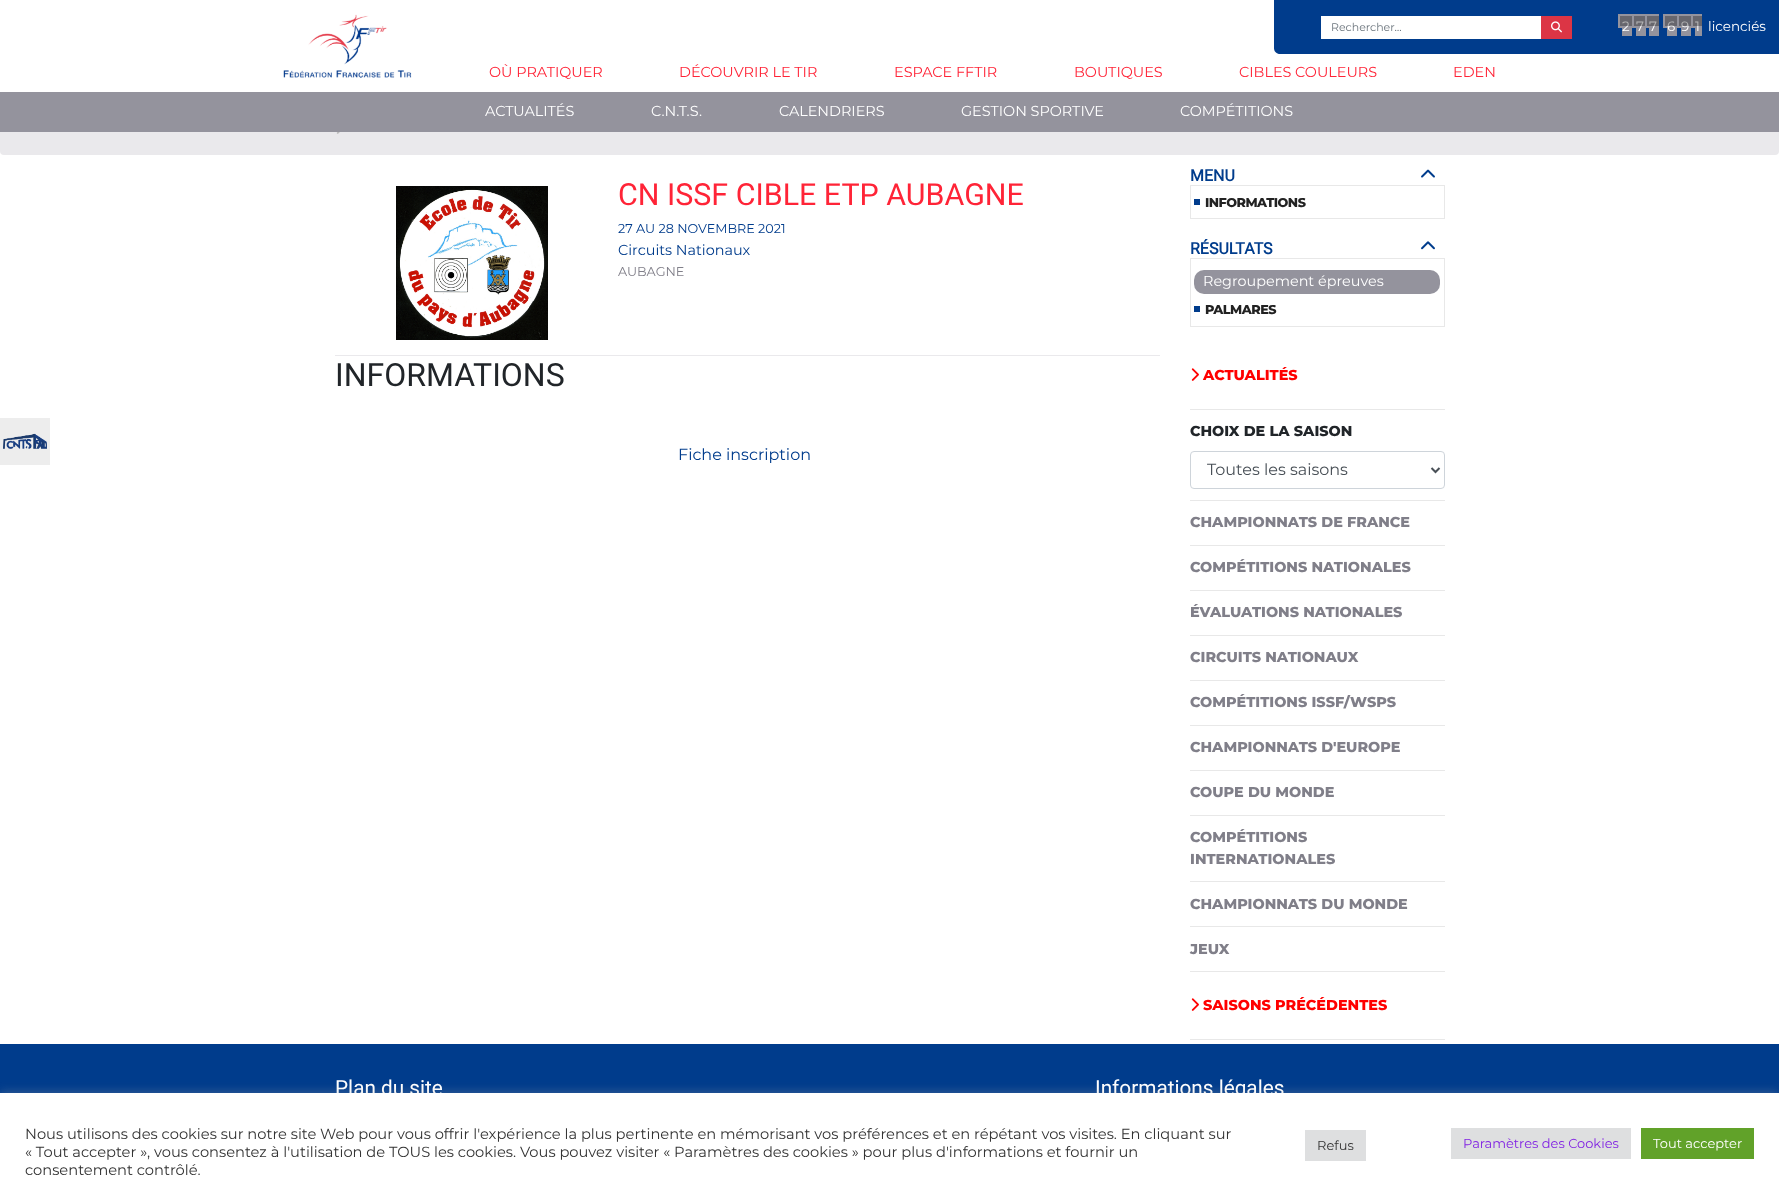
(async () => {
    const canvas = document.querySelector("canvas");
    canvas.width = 1779;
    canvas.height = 1193;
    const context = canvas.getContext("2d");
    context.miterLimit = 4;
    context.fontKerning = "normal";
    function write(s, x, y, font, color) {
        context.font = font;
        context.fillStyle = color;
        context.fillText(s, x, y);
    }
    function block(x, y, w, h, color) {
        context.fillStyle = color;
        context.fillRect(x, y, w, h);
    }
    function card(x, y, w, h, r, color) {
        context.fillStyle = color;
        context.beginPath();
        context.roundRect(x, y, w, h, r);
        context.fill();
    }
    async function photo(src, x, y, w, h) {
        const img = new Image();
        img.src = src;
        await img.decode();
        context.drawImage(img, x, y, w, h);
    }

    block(0, 0, 1779, 1193, "rgb(255, 255, 255)");
    context.fillStyle = "rgb(0, 60, 140)";
    context.beginPath();
    context.moveTo(1274, 0);
    context.lineTo(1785, 0);
    context.lineTo(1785, 54);
    context.lineTo(1280, 54);
    context.bezierCurveTo(1276.5, 54, 1274, 51.5, 1274, 48);
    context.closePath();
    context.fill();
    block(1321, 16, 220, 23, "rgb(255, 255, 255)");
    write("Rechercher…", 1331, 31, "11px Montserrat", "rgb(108, 117, 125)");
    block(1541, 16, 31, 23, "rgb(220, 53, 69)");
    await photo("media/1.png", 1551, 21, 11, 12);
    block(1618, 14, 27, 14, "rgb(148, 147, 157)");
    block(1622, 28, 10, 8, "rgb(148, 147, 157)");
    write("2", 1622, 31, "13.5px Montserrat", "rgb(255, 255, 255)");
    block(1620, 16, 12, 10, "rgba(0, 0, 0, 0.3)");
    block(1636, 16, 10, 20, "rgb(148, 147, 157)");
    write("7", 1636, 31, "13.5px Montserrat", "rgb(255, 255, 255)");
    block(1634, 16, 11, 10, "rgba(0, 0, 0, 0.3)");
    block(1645, 14, 14, 14, "rgb(148, 147, 157)");
    block(1649, 28, 10, 8, "rgb(148, 147, 157)");
    write("7", 1649, 31, "13.5px Montserrat", "rgb(255, 255, 255)");
    block(1647, 16, 12, 10, "rgba(0, 0, 0, 0.3)");
    block(1663, 14, 39, 14, "rgb(148, 147, 157)");
    block(1667, 28, 10, 8, "rgb(148, 147, 157)");
    write("6", 1667, 31, "13.5px Montserrat", "rgb(255, 255, 255)");
    block(1665, 16, 12, 10, "rgba(0, 0, 0, 0.3)");
    block(1681, 28, 10, 8, "rgb(148, 147, 157)");
    write("9", 1681, 31, "13.5px Montserrat", "rgb(255, 255, 255)");
    block(1679, 16, 12, 10, "rgba(0, 0, 0, 0.3)");
    block(1695, 28, 7, 8, "rgb(148, 147, 157)");
    write("1", 1695, 31, "13.5px Montserrat", "rgb(255, 255, 255)");
    block(1693, 16, 9, 10, "rgba(0, 0, 0, 0.3)");
    write("licenciés", 1708, 31, "13.5px Montserrat", "rgb(255, 255, 255)");
    await photo("media/2.png", 283, 14, 129, 64);
    write("OÙ PRATIQUER", 489, 77, "14.4px Montserrat", "rgb(255, 36, 55)");
    write("DÉCOUVRIR LE TIR", 679, 77, "14.4px Montserrat", "rgb(255, 36, 55)");
    write("ESPACE FFTIR", 894, 77, "14.4px Montserrat", "rgb(255, 36, 55)");
    write("BOUTIQUES", 1074, 77, "14.4px Montserrat", "rgb(255, 36, 55)");
    write("CIBLES COULEURS", 1239, 77, "14.4px Montserrat", "rgb(255, 36, 55)");
    write("EDEN", 1453, 77, "14.4px Montserrat", "rgb(255, 36, 55)");
    card(0, 102, 1779, 53, 4, "rgb(234, 233, 236)");
    block(0, 92, 1779, 40, "rgb(148, 147, 157)");
    write("ACTUALITÉS", 485, 116, "14.4px Montserrat", "rgb(255, 255, 255)");
    write("C.N.T.S.", 651, 116, "14.4px Montserrat", "rgb(255, 255, 255)");
    write("CALENDRIERS", 779, 116, "14.4px Montserrat", "rgb(255, 255, 255)");
    write("GESTION SPORTIVE", 961, 116, "14.4px Montserrat", "rgb(255, 255, 255)");
    write("COMPÉTITIONS", 1180, 116, "14.4px Montserrat", "rgb(255, 255, 255)");
    block(0, 418, 50, 47, "rgb(237, 237, 237)");
    await photo("media/3.png", 3, 433, 44, 16);
    await photo("media/4.png", 336, 132, 4, 2);
    block(335, 355, 825, 1, "rgb(234, 233, 236)");
    await photo("media/5.png", 396, 186, 152, 154);
    write("CN ISSF CIBLE ETP AUBAGNE", 618, 205, "30.4px Roboto", "rgb(255, 36, 55)");
    write("27 AU 28 NOVEMBRE 2021", 618, 233, "12.75px Montserrat", "rgb(0, 60, 140)");
    write("Circuits Nationaux", 618, 255, "14.4px Montserrat", "rgb(0, 60, 140)");
    write("AUBAGNE", 618, 276, "12.75px Montserrat", "rgb(128, 127, 137)");
    write("INFORMATIONS", 335, 386, "32px Roboto", "rgb(33, 37, 41)");
    write("Fiche inscription", 678, 460, "16px Montserrat", "rgb(0, 60, 140)");
    write("MENU", 1190, 181, "bold 16px Roboto", "rgb(0, 60, 140)");
    await photo("media/6.png", 1421, 169, 14, 9);
    context.strokeStyle = "rgb(232, 232, 232)";
    context.strokeRect(1190.5, 185.5, 254, 33);
    block(1194, 199, 6, 6, "rgb(0, 60, 140)");
    context.letterSpacing = "-0.5px";
    write("INFORMATIONS", 1205, 207, "800 12.75px Montserrat", "rgb(34, 34, 34)");
    context.letterSpacing = "0px";
    write("RÉSULTATS", 1190, 254, "bold 16px Roboto", "rgb(0, 60, 140)");
    await photo("media/7.png", 1421, 241, 14, 9);
    context.strokeRect(1190.5, 258.5, 254, 68);
    card(1194, 270, 246, 24, 10, "rgb(148, 147, 157)");
    write("Regroupement épreuves", 1203, 286, "14.4px Montserrat", "rgb(255, 255, 255)");
    block(1194, 306, 6, 6, "rgb(0, 60, 140)");
    context.letterSpacing = "-0.5px";
    write("PALMARES", 1205, 314, "800 12.75px Montserrat", "rgb(34, 34, 34)");
    block(1190, 409, 255, 1, "rgb(232, 232, 232)");
    await photo("media/8.png", 1191, 368, 8, 13);
    context.letterSpacing = "0px";
    write("ACTUALITÉS", 1203, 380, "800 14.4px Montserrat", "rgb(255, 0, 0)");
    block(1190, 500, 255, 1, "rgb(232, 232, 232)");
    write("CHOIX DE LA SAISON", 1190, 436, "800 14.4px Montserrat", "rgb(33, 37, 41)");
    context.beginPath();
    context.roundRect(1190.5, 451.5, 254, 37, 3.5);
    context.strokeStyle = "rgb(206, 212, 218)";
    context.stroke();
    context.beginPath();
    context.moveTo(1431.5, 468);
    context.lineTo(1435.5, 472);
    context.lineTo(1439.5, 468);
    context.strokeStyle = "rgb(73, 80, 87)";
    context.lineWidth = 2;
    context.stroke();
    write("Toutes les saisons", 1207, 475, "16px Montserrat", "rgb(73, 80, 87)");
    block(1190, 545, 255, 1, "rgb(232, 232, 232)");
    write("CHAMPIONNATS DE FRANCE", 1190, 527, "800 14.4px Montserrat", "rgb(128, 127, 137)");
    block(1190, 590, 255, 1, "rgb(232, 232, 232)");
    write("COMPÉTITIONS NATIONALES", 1190, 572, "800 14.4px Montserrat", "rgb(128, 127, 137)");
    block(1190, 635, 255, 1, "rgb(232, 232, 232)");
    write("ÉVALUATIONS NATIONALES", 1190, 617, "800 14.4px Montserrat", "rgb(128, 127, 137)");
    block(1190, 680, 255, 1, "rgb(232, 232, 232)");
    write("CIRCUITS NATIONAUX", 1190, 662, "800 14.4px Montserrat", "rgb(128, 127, 137)");
    block(1190, 725, 255, 1, "rgb(232, 232, 232)");
    write("COMPÉTITIONS ISSF/WSPS", 1190, 707, "800 14.4px Montserrat", "rgb(128, 127, 137)");
    block(1190, 770, 255, 1, "rgb(232, 232, 232)");
    write("CHAMPIONNATS D'EUROPE", 1190, 752, "800 14.4px Montserrat", "rgb(128, 127, 137)");
    block(1190, 815, 255, 1, "rgb(232, 232, 232)");
    write("COUPE DU MONDE", 1190, 797, "800 14.4px Montserrat", "rgb(128, 127, 137)");
    block(1190, 881, 255, 1, "rgb(232, 232, 232)");
    write("COMPÉTITIONS", 1190, 842, "800 14.4px Montserrat", "rgb(128, 127, 137)");
    write("INTERNATIONALES", 1190, 864, "800 14.4px Montserrat", "rgb(128, 127, 137)");
    block(1190, 926, 255, 1, "rgb(232, 232, 232)");
    write("CHAMPIONNATS DU MONDE", 1190, 909, "800 14.4px Montserrat", "rgb(128, 127, 137)");
    block(1190, 971, 255, 1, "rgb(232, 232, 232)");
    write("JEUX", 1190, 954, "800 14.4px Montserrat", "rgb(128, 127, 137)");
    block(1190, 1039, 255, 1, "rgb(232, 232, 232)");
    await photo("media/8.png", 1191, 998, 8, 13);
    write("SAISONS PRÉCÉDENTES", 1203, 1010, "800 14.4px Montserrat", "rgb(255, 0, 0)");
    block(0, 1044, 1779, 49, "rgb(0, 60, 140)");
    write("Plan du site", 335, 1095, "20.75px Roboto", "rgb(255, 255, 255)");
    write("Informations légales", 1095, 1095, "20.75px Roboto", "rgb(255, 255, 255)");
    context.fillStyle = "rgba(172, 171, 171, 0.3)";
    context.filter = "blur(5px)";
    context.beginPath();
    context.rect(0, 1092, 1779, 100);
    context.fill();
    context.filter = "none";
    block(0, 1093, 1779, 100, "rgb(255, 255, 255)");
    write("Nous utilisons des cookies sur notre site Web pour vous offrir l'expérience la plus pertinente en mémorisant vos préférences et en répétant vos visites. En cliquant sur", 25, 1139, "14.67px Montserrat", "rgb(51, 51, 51)");
    write("« Tout accepter », vous consentez à l'utilisation de TOUS les cookies. Vous pouvez visiter « Paramètres des cookies » pour plus d'informations et fournir un", 25, 1157, "14.67px Montserrat", "rgb(51, 51, 51)");
    write("consentement contrôlé.", 25, 1175, "14.67px Montserrat", "rgb(51, 51, 51)");
    block(1305, 1130, 61, 31, "rgb(222, 223, 224)");
    write("Refus", 1317, 1150, "13px Montserrat", "rgb(51, 51, 51)");
    block(1451, 1128, 180, 31, "rgb(222, 223, 224)");
    write("Paramètres des Cookies", 1463, 1148, "13px Montserrat", "rgb(130, 36, 227)");
    block(1641, 1128, 113, 31, "rgb(97, 162, 41)");
    write("Tout accepter", 1653, 1148, "13px Montserrat", "rgb(255, 255, 255)");
})();
